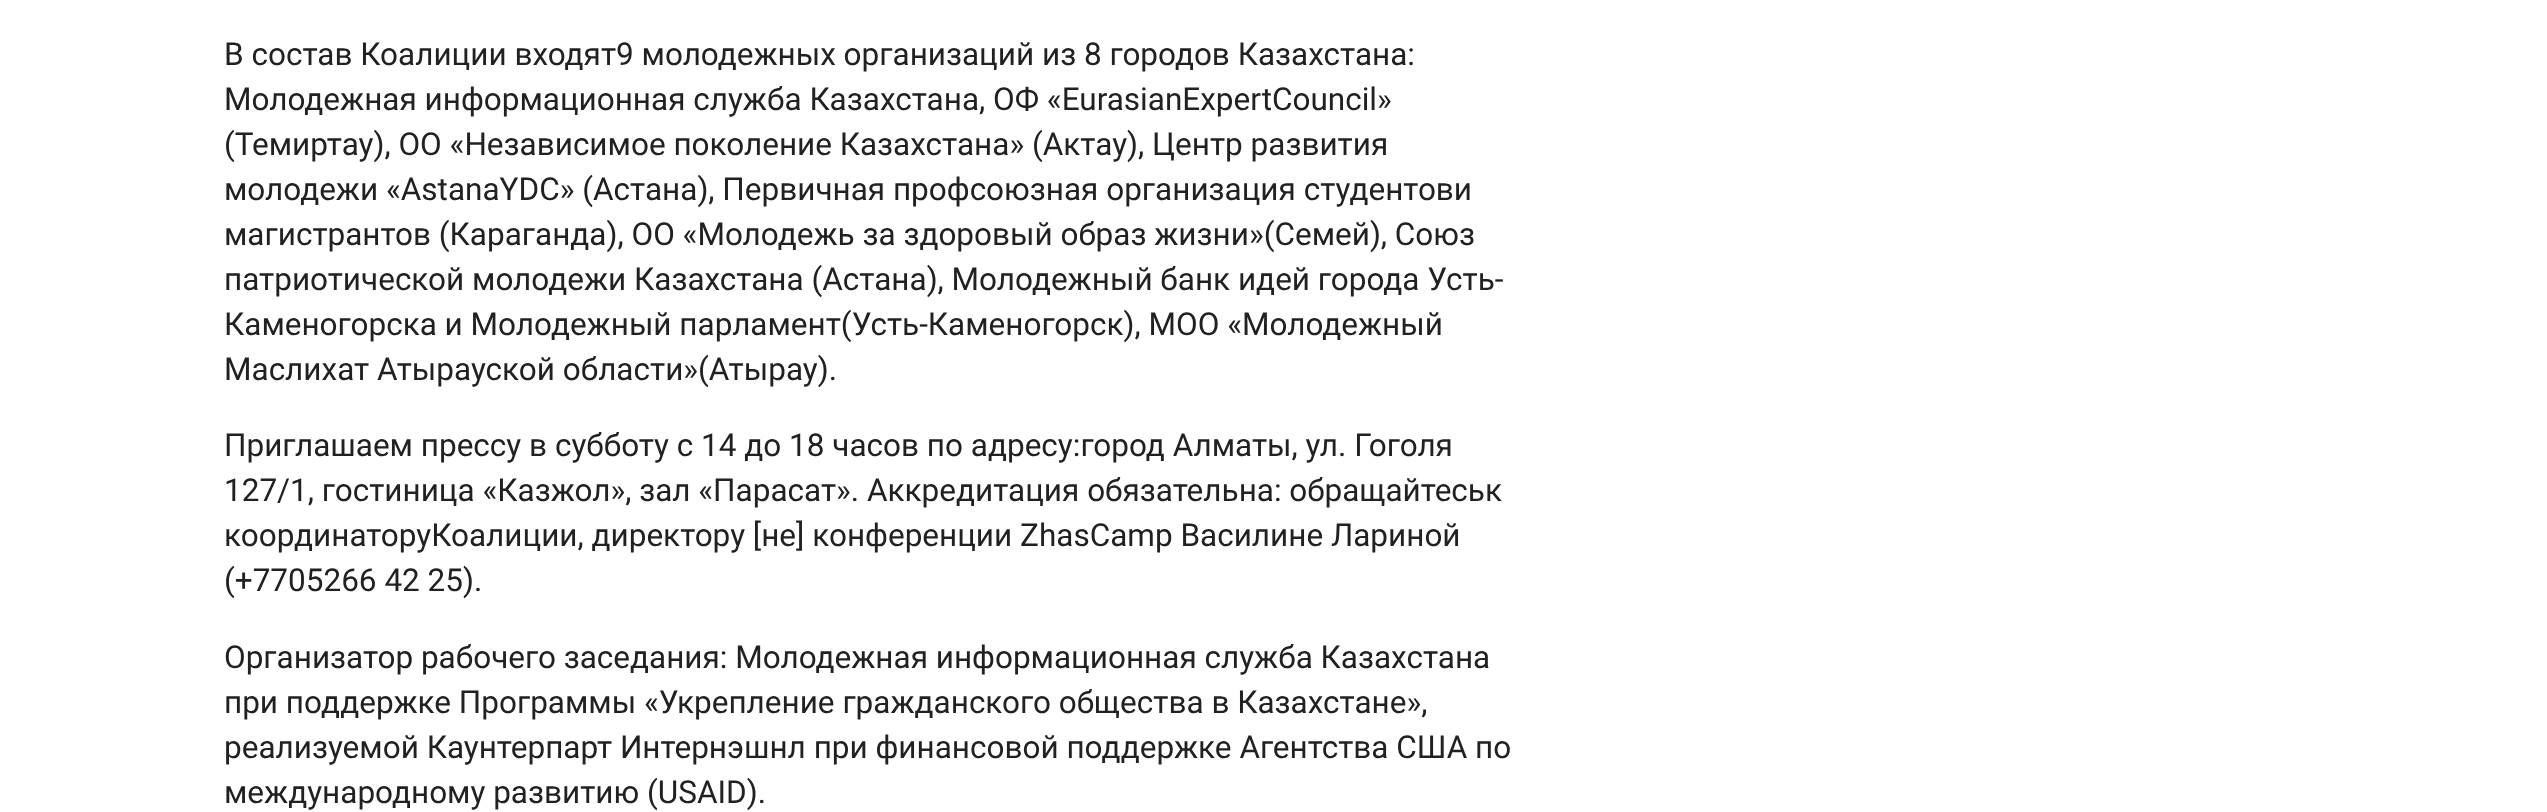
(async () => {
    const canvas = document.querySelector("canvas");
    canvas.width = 2547;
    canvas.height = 812;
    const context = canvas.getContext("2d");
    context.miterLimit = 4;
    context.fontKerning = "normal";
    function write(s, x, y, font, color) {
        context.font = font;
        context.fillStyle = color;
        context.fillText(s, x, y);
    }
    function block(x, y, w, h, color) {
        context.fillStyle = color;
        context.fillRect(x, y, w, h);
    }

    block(0, 0, 2547, 812, "rgb(255, 255, 255)");
    write("В состав Коалиции входят9 молодежных организаций из 8 городов Казахстана:", 224, 65, "31.5px Roboto", "rgb(33, 33, 33)");
    write("Молодежная информационная служба Казахстана, ОФ «EurasianExpertCouncil»", 224, 110, "31.5px Roboto", "rgb(33, 33, 33)");
    write("(Темиртау), ОО «Независимое поколение Казахстана» (Актау), Центр развития", 224, 155, "31.5px Roboto", "rgb(33, 33, 33)");
    write("молодежи «AstanaYDC» (Астана), Первичная профсоюзная организация студентови", 224, 200, "31.5px Roboto", "rgb(33, 33, 33)");
    write("магистрантов (Караганда), ОО «Молодежь за здоровый образ жизни»(Семей), Союз", 224, 245, "31.5px Roboto", "rgb(33, 33, 33)");
    write("патриотической молодежи Казахстана (Астана), Молодежный банк идей города Усть-", 224, 290, "31.5px Roboto", "rgb(33, 33, 33)");
    write("Каменогорска и Молодежный парламент(Усть-Каменогорск), МОО «Молодежный", 224, 335, "31.5px Roboto", "rgb(33, 33, 33)");
    write("Маслихат Атырауской области»(Атырау).", 224, 380, "31.5px Roboto", "rgb(33, 33, 33)");
    write("Приглашаем прессу в субботу с 14 до 18 часов по адресу:город Алматы, ул. Гоголя", 224, 456, "31.5px Roboto", "rgb(33, 33, 33)");
    write("127/1, гостиница «Казжол», зал «Парасат». Аккредитация обязательна: обращайтеськ", 224, 501, "31.5px Roboto", "rgb(33, 33, 33)");
    write("координаторуКоалиции, директору [не] конференции ZhasCamp Василине Лариной", 224, 546, "31.5px Roboto", "rgb(33, 33, 33)");
    write("(+7705266 42 25).", 224, 591, "31.5px Roboto", "rgb(33, 33, 33)");
    write("Организатор рабочего заседания: Молодежная информационная служба Казахстана", 224, 668, "31.5px Roboto", "rgb(33, 33, 33)");
    write("при поддержке Программы «Укрепление гражданского общества в Казахстане»,", 224, 713, "31.5px Roboto", "rgb(33, 33, 33)");
    write("реализуемой Каунтерпарт Интернэшнл при финансовой поддержке Агентства США по", 224, 758, "31.5px Roboto", "rgb(33, 33, 33)");
    write("международному развитию (USAID).", 224, 803, "31.5px Roboto", "rgb(33, 33, 33)");
})();
